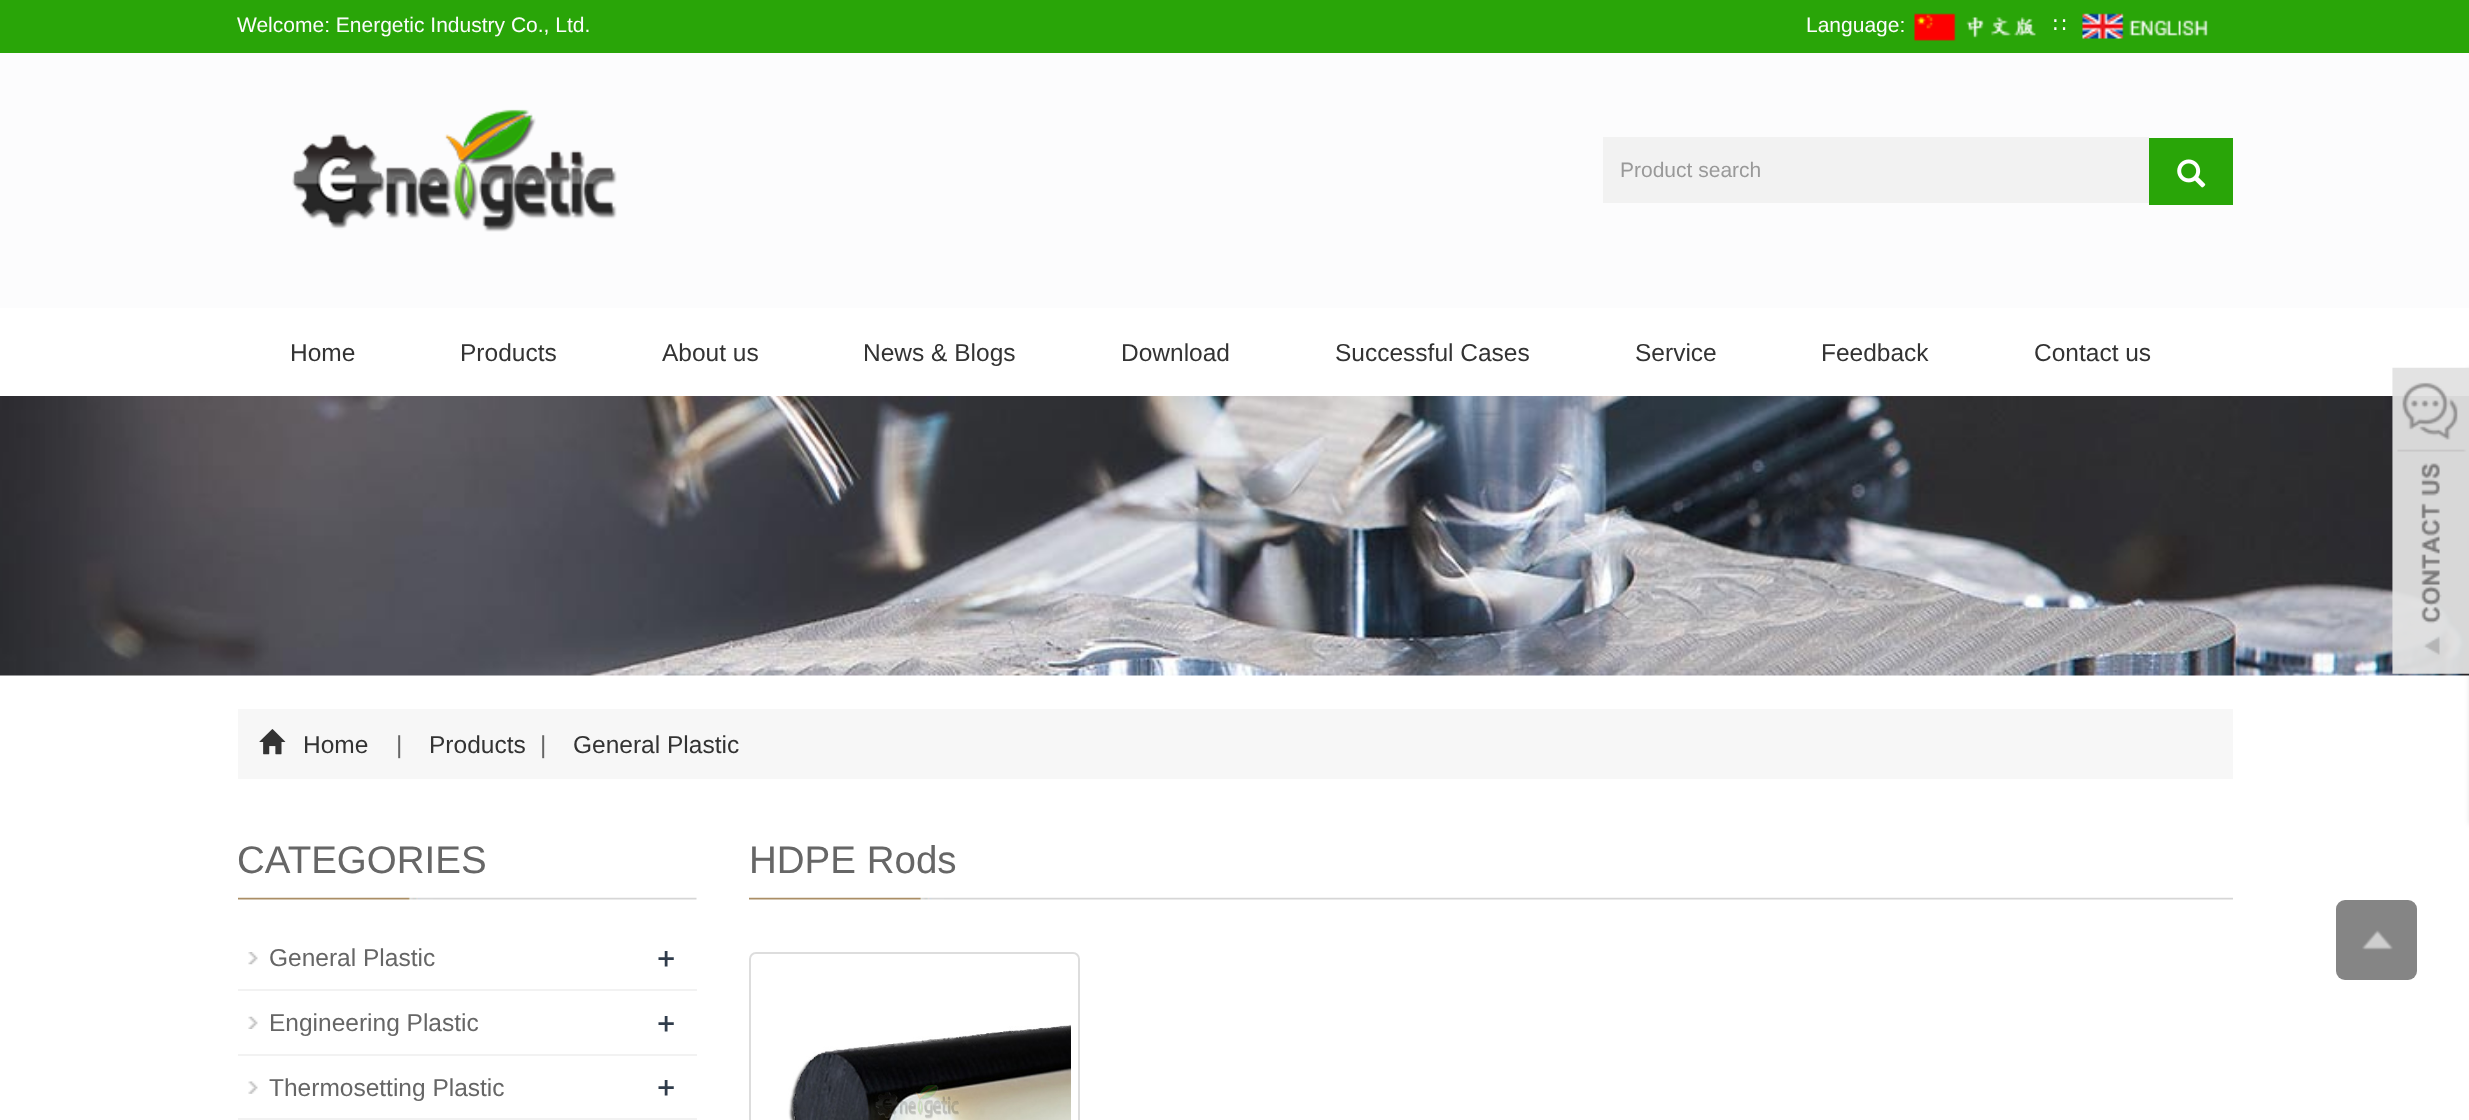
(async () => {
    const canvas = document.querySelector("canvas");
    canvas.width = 2469;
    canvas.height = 1120;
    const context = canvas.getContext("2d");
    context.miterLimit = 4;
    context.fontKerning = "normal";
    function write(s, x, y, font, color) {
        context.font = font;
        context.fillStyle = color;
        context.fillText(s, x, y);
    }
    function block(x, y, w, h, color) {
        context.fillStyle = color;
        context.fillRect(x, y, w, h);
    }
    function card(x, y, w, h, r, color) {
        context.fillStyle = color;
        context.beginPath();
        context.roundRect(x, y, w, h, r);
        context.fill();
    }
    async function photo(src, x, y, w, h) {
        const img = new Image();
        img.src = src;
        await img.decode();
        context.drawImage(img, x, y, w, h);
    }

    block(0, 0, 2469, 1120, "rgb(255, 255, 255)");
    block(0, 53, 2469, 255, "rgb(252, 252, 253)");
    block(0, 0, 2469, 53, "rgb(41, 165, 8)");
    write("Welcome: Energetic Industry Co., Ltd.", 237, 32, "21px Liberation Sans", "rgb(252, 252, 253)");
    write("Language:", 1806, 32, "21px Liberation Sans", "rgb(252, 252, 253)");
    await photo("media/1.png", 1914, 13, 122, 28);
    write("∷", 2053, 32, "21px DejaVu Sans", "rgb(252, 252, 253)");
    await photo("media/2.png", 2082, 13, 126, 26);
    await photo("media/3.png", 292, 109, 325, 123);
    block(1603, 137, 546, 66, "rgb(242, 242, 242)");
    write("Product search", 1620, 177, "21px Liberation Sans", "rgb(153, 153, 153)");
    block(2149, 138, 84, 67, "rgb(41, 165, 8)");
    await photo("media/4.png", 2177, 159, 29, 29);
    write("Home", 290, 361, "24.5px Liberation Sans", "rgb(51, 51, 51)");
    write("Products", 460, 361, "24.5px Liberation Sans", "rgb(51, 51, 51)");
    write("About us", 662, 361, "24.5px Liberation Sans", "rgb(51, 51, 51)");
    write("News & Blogs", 863, 361, "24.5px Liberation Sans", "rgb(51, 51, 51)");
    write("Download", 1121, 361, "24.5px Liberation Sans", "rgb(51, 51, 51)");
    write("Successful Cases", 1335, 361, "24.5px Liberation Sans", "rgb(51, 51, 51)");
    write("Service", 1635, 361, "24.5px Liberation Sans", "rgb(51, 51, 51)");
    write("Feedback", 1821, 361, "24.5px Liberation Sans", "rgb(51, 51, 51)");
    write("Contact us", 2034, 361, "24.5px Liberation Sans", "rgb(51, 51, 51)");
    await photo("media/6.png", 0, 396, 2469, 280);
    context.fillStyle = "rgba(0, 0, 0, 0.1)";
    context.filter = "blur(2.5px)";
    context.beginPath();
    context.rect(2469, 368, 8, 456);
    context.fill();
    context.filter = "none";
    await photo("media/5.png", 2392, 367, 77, 307);
    block(238, 709, 1995, 70, "rgb(247, 247, 247)");
    await photo("media/7.png", 259, 729, 27, 26);
    write("Home", 303, 753, "24.5px Liberation Sans", "rgb(51, 51, 51)");
    write("|", 396, 753, "24.5px Liberation Sans", "rgb(102, 102, 102)");
    write("Products", 429, 753, "24.5px Liberation Sans", "rgb(51, 51, 51)");
    write("|", 540, 753, "24.5px Liberation Sans", "rgb(102, 102, 102)");
    write("General Plastic", 573, 753, "24.5px Liberation Sans", "rgb(51, 51, 51)");
    await photo("media/8.png", 238, 897, 459, 3);
    write("CATEGORIES", 237, 873, "38.5px Liberation Sans", "rgb(102, 102, 102)");
    await photo("media/9.png", 248, 952, 10, 13);
    block(238, 989, 459, 2, "rgb(242, 242, 242)");
    write("General Plastic", 269, 966, "24.5px Liberation Sans", "rgb(102, 102, 102)");
    write("+", 657, 970, "600 32px Open Sans", "rgb(48, 60, 75)");
    await photo("media/10.png", 248, 1016, 10, 13);
    block(238, 1054, 459, 2, "rgb(242, 242, 242)");
    write("Engineering Plastic", 269, 1031, "24.5px Liberation Sans", "rgb(102, 102, 102)");
    write("+", 657, 1035, "600 32px Open Sans", "rgb(48, 60, 75)");
    await photo("media/11.png", 248, 1081, 10, 13);
    block(238, 1118, 459, 2, "rgb(242, 242, 242)");
    write("Thermosetting Plastic", 269, 1096, "24.5px Liberation Sans", "rgb(102, 102, 102)");
    write("+", 657, 1099, "600 32px Open Sans", "rgb(48, 60, 75)");
    await photo("media/12.png", 749, 897, 1484, 3);
    write("HDPE Rods", 749, 873, "38.5px Liberation Sans", "rgb(102, 102, 102)");
    context.beginPath();
    context.roundRect(750, 953, 329, 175, 6);
    context.strokeStyle = "rgb(221, 221, 221)";
    context.lineWidth = 2;
    context.stroke();
    await photo("media/13.png", 788, 1024, 283, 96);
    card(2336, 900, 81, 80, 9, "rgb(133, 133, 133)");
    await photo("media/14.png", 2362, 930, 31, 20);
})();
